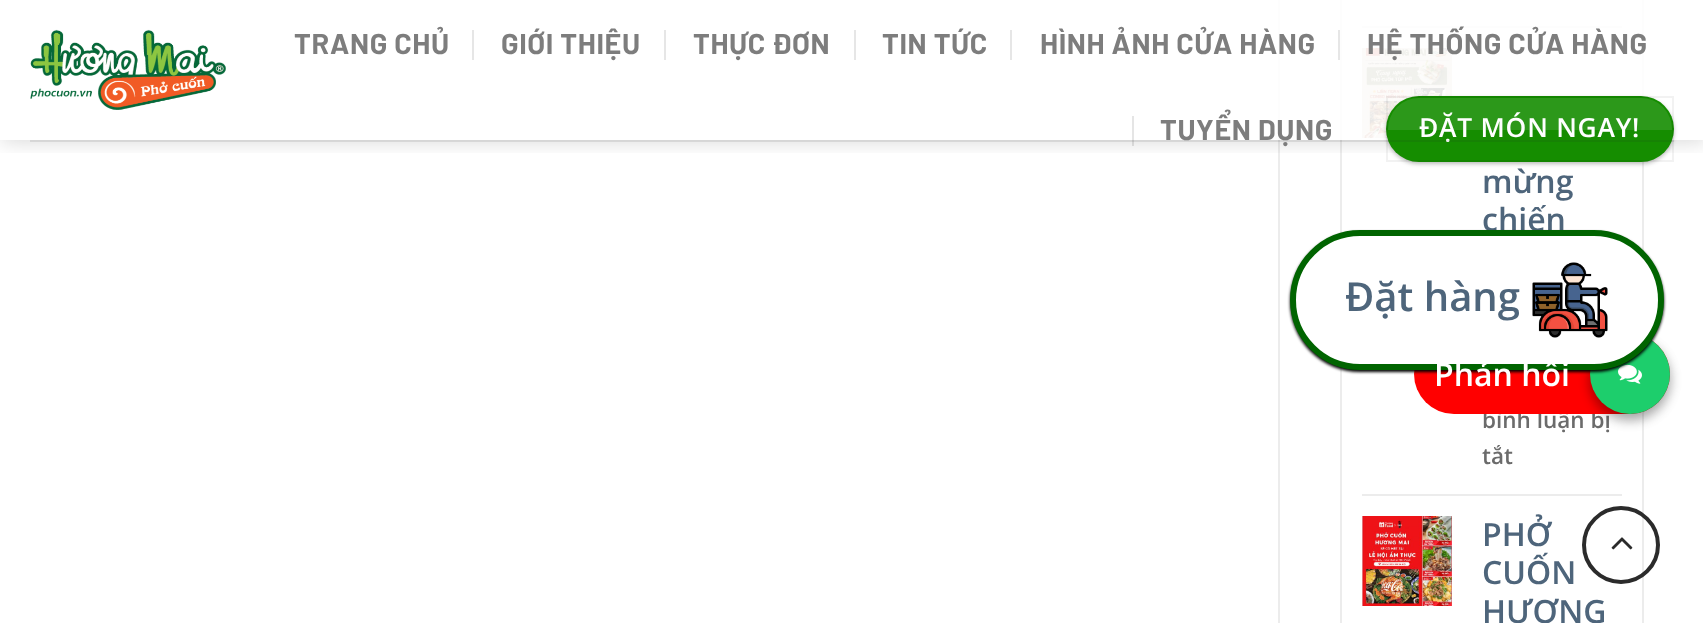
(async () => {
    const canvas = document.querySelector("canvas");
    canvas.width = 1703;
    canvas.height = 623;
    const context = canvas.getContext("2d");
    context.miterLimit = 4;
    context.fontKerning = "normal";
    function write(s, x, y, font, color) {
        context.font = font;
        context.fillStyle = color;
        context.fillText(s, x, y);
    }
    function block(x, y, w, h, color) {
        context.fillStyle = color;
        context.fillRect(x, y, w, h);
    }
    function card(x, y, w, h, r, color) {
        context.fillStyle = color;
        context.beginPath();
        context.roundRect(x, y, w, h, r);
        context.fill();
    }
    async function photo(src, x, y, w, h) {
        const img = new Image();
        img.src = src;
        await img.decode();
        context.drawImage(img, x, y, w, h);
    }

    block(0, 0, 1703, 623, "rgb(255, 255, 255)");
    block(1278, 0, 2, 623, "rgb(236, 236, 236)");
    context.beginPath();
    context.moveTo(1644, -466);
    context.lineTo(1644, 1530);
    context.lineTo(1642, 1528);
    context.lineTo(1642, -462);
    context.closePath();
    context.fill();
    context.beginPath();
    context.moveTo(1340, 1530);
    context.lineTo(1340, -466);
    context.lineTo(1342, -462);
    context.lineTo(1342, 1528);
    context.closePath();
    context.fill();
    block(1362, 26, 260, 2, "rgb(236, 236, 236)");
    await photo("media/2.png", 1362, 48, 90, 90);
    context.save();
    context.beginPath();
    context.rect(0, 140, 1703, 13);
    context.clip();
    context.fillStyle = "rgba(0, 0, 0, 0.15)";
    context.filter = "blur(10px)";
    context.beginPath();
    context.rect(2, 2, 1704, 140);
    context.fill();
    context.filter = "none";
    context.restore();
    block(1278, 0, 366, 140, "rgba(255, 255, 255, 0.9)");
    await photo("media/1.png", 30, 29, 196, 81);
    context.letterSpacing = "0.6px";
    write("TRANG CHỦ", 294, 54, "bold 28.75px Barlow", "rgb(125, 125, 125)");
    block(472, 30, 2, 30, "rgb(230, 230, 230)");
    write("GIỚI THIỆU", 501, 54, "bold 28.75px Barlow", "rgb(125, 125, 125)");
    block(664, 30, 2, 30, "rgb(230, 230, 230)");
    write("THỰC ĐƠN", 693, 54, "bold 28.75px Barlow", "rgb(125, 125, 125)");
    block(854, 30, 2, 30, "rgb(230, 230, 230)");
    write("TIN TỨC", 882, 54, "bold 28.75px Barlow", "rgb(125, 125, 125)");
    block(1010, 30, 2, 30, "rgb(230, 230, 230)");
    write("HÌNH ẢNH CỬA HÀNG", 1040, 54, "bold 28.75px Barlow", "rgb(125, 125, 125)");
    block(1338, 30, 2, 30, "rgb(230, 230, 230)");
    write("HỆ THỐNG CỬA HÀNG", 1367, 54, "bold 28.75px Barlow", "rgb(125, 125, 125)");
    block(1132, 116, 2, 30, "rgba(0, 0, 0, 0.1)");
    write("TUYỂN DỤNG", 1160, 140, "bold 28.75px Barlow", "rgb(125, 125, 125)");
    context.fillStyle = "rgba(0, 0, 0, 0.24)";
    context.filter = "blur(2px)";
    context.beginPath();
    context.roundRect(1386, 98, 288, 66, 33);
    context.fill();
    context.filter = "none";
    context.fillStyle = "rgba(0, 0, 0, 0.12)";
    context.filter = "blur(3px)";
    context.beginPath();
    context.roundRect(1390, 102, 280, 58, 29);
    context.fill();
    context.filter = "none";
    card(1386, 96, 288, 66, 33, "rgb(21, 141, 0)");
    context.strokeStyle = "rgba(0, 0, 0, 0.05)";
    context.lineWidth = 2;
    context.strokeRect(1387, 97, 286, 64);
    context.fillStyle = "rgba(255, 255, 255, 0.1)";
    context.beginPath();
    context.roundRect(1388, 98, 284, 32, [31, 31, 0, 0]);
    context.fill();
    context.letterSpacing = "0.75px";
    write("ĐẶT MÓN NGAY!", 1419, 137, "600 26.4px Open Sans", "rgb(255, 255, 255)");
    block(30, 140, 1644, 2, "rgba(43, 43, 43, 0.1)");
    context.letterSpacing = "0px";
    write("mừng", 1482, 193, "600 32px Open Sans", "rgb(78, 101, 123)");
    write("chiến", 1482, 231, "600 32px Open Sans", "rgb(78, 101, 123)");
    write("bình luận bị", 1482, 428, "600 22.5px Open Sans", "rgb(107, 107, 107)");
    write("tắt", 1482, 464, "600 22.5px Open Sans", "rgb(107, 107, 107)");
    block(1362, 494, 260, 2, "rgb(236, 236, 236)");
    await photo("media/3.png", 1362, 516, 90, 90);
    write("PHỞ", 1482, 546, "600 32px Open Sans", "rgb(78, 101, 123)");
    write("CUỐN", 1482, 584, "600 32px Open Sans", "rgb(78, 101, 123)");
    write("HƯƠNG", 1482, 623, "600 32px Open Sans", "rgb(78, 101, 123)");
    context.beginPath();
    context.arc(1621, 545, 37, 0, Math.PI * 2);
    context.strokeStyle = "rgb(43, 43, 43)";
    context.lineWidth = 4;
    context.stroke();
    await photo("media/4.png", 1611, 537, 22, 13);
    card(1414, 334, 256, 80, 40, "rgb(255, 0, 0)");
    context.fillStyle = "rgba(0, 0, 0, 0.23)";
    context.filter = "blur(6px)";
    context.beginPath();
    context.roundRect(1590, 340, 80, 80, 40);
    context.fill();
    context.filter = "none";
    context.fillStyle = "rgba(0, 0, 0, 0.16)";
    context.filter = "blur(6px)";
    context.beginPath();
    context.roundRect(1590, 340, 80, 80, 40);
    context.fill();
    context.filter = "none";
    context.fillStyle = "rgb(29, 206, 108)";
    context.beginPath();
    context.arc(1630, 374, 40, 0, Math.PI * 2);
    context.fill();
    await photo("media/6.png", 1618, 364, 24, 20);
    context.fillStyle = "rgb(0, 0, 0)";
    context.filter = "blur(1.5px)";
    context.beginPath();
    context.roundRect(1290, 232, 374, 140, 70);
    context.fill();
    context.filter = "none";
    context.fillStyle = "rgb(255, 255, 255)";
    context.beginPath();
    context.roundRect(1293, 233, 368, 134, 67);
    context.fill();
    context.strokeStyle = "rgb(0, 100, 0)";
    context.lineWidth = 6;
    context.stroke();
    write("Đặt hàng", 1345, 311, "600 40px Open Sans", "rgb(78, 101, 123)");
    await photo("media/5.png", 1532, 262, 76, 76);
    write("Phản hồi", 1434, 386, "600 32px Open Sans", "rgb(255, 255, 255)");
})();
